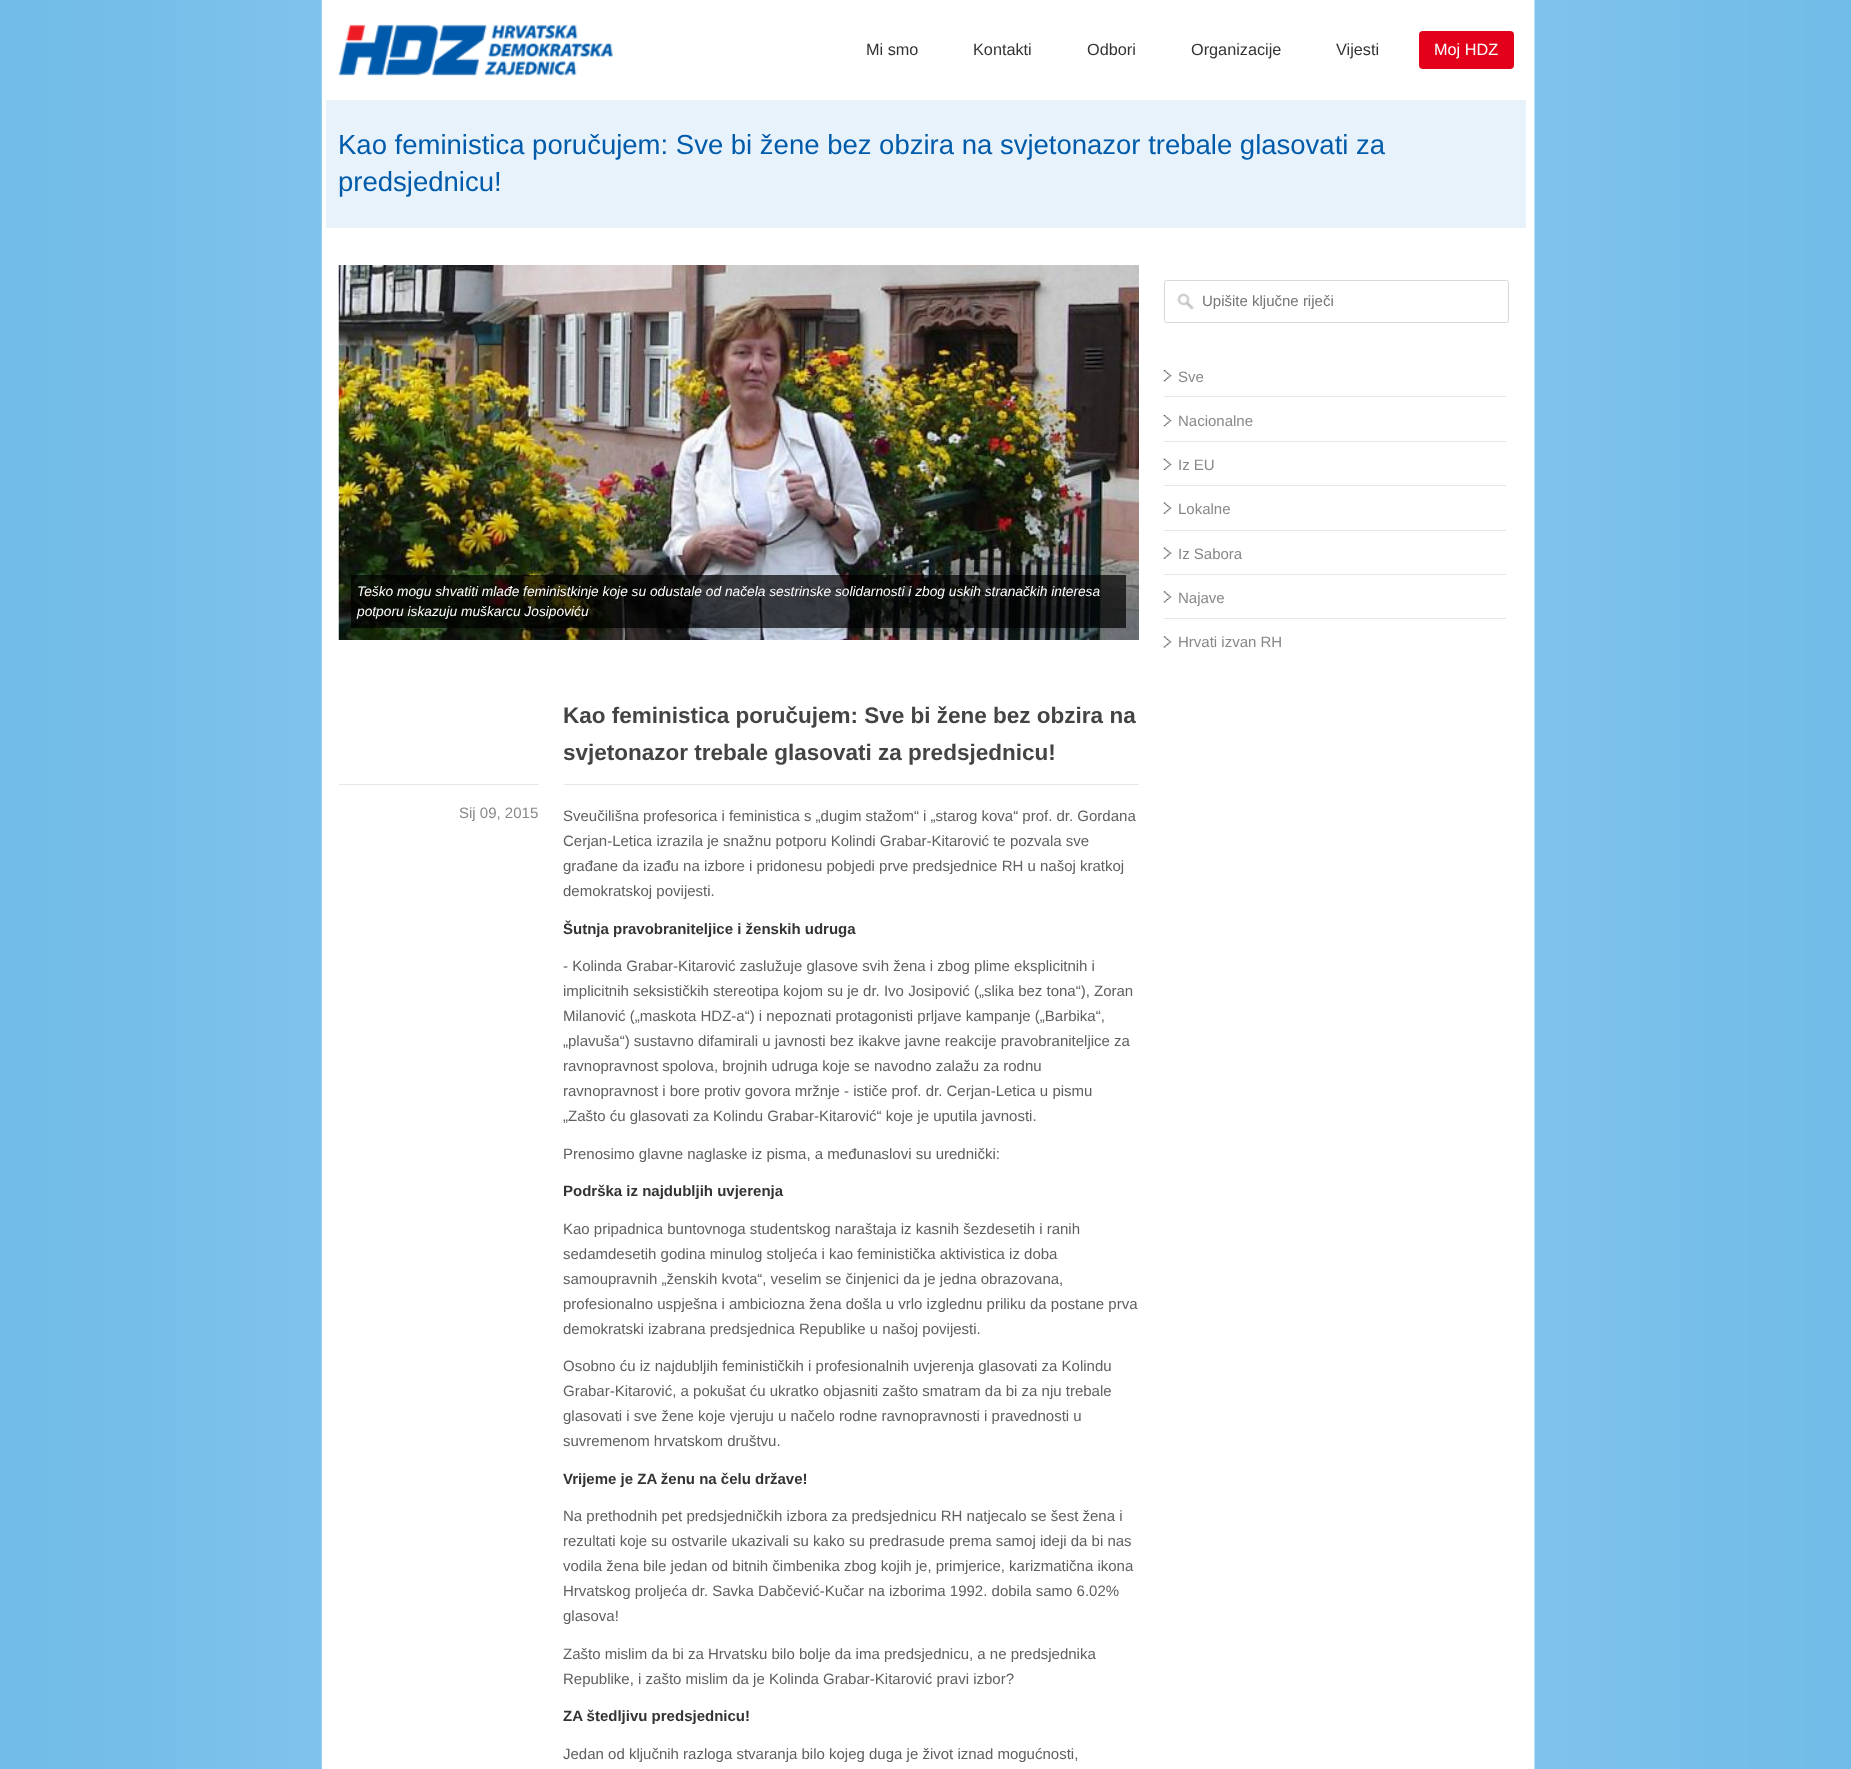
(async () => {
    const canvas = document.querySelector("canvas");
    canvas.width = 1851;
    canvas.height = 1769;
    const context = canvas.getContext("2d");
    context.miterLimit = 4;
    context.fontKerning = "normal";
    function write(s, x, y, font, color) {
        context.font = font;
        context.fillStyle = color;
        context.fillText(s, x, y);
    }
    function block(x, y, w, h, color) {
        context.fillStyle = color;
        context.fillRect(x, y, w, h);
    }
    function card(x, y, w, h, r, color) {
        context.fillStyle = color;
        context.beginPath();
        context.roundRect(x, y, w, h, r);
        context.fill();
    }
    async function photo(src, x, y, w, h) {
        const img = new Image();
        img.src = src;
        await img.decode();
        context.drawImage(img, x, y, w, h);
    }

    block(0, 0, 1851, 1769, "rgb(255, 255, 255)");
    await photo("media/1.png", 0, 0, 1851, 1769);
    await photo("media/2.png", 338, 24, 275, 52);
    write("Mi smo", 866, 55, "16.25px Liberation Sans", "rgb(51, 51, 51)");
    write("Kontakti", 973, 55, "16.25px Liberation Sans", "rgb(51, 51, 51)");
    write("Odbori", 1087, 55, "16.25px Liberation Sans", "rgb(51, 51, 51)");
    write("Organizacije", 1191, 55, "16.25px Liberation Sans", "rgb(51, 51, 51)");
    write("Vijesti", 1336, 55, "16.25px Liberation Sans", "rgb(51, 51, 51)");
    card(1419, 31, 95, 38, 4, "rgb(226, 0, 26)");
    write("Moj HDZ", 1434, 55, "16.25px Liberation Sans", "rgb(255, 255, 255)");
    block(326, 100, 1200, 128, "rgb(231, 242, 250)");
    write("Kao feministica poručujem: Sve bi žene bez obzira na svjetonazor trebale glasovati za", 338, 154, "27.5px Liberation Sans", "rgb(0, 91, 170)");
    write("predsjednicu!", 338, 191, "27.5px Liberation Sans", "rgb(0, 91, 170)");
    await photo("media/3.png", 1177, 293, 17, 17);
    context.beginPath();
    context.roundRect(1164.5, 280.5, 344, 42, 2);
    context.strokeStyle = "rgb(216, 216, 216)";
    context.stroke();
    write("Upišite ključne riječi", 1202, 306, "15px Liberation Sans", "rgb(117, 117, 117)");
    await photo("media/4.png", 1163, 370, 9, 12);
    block(1164, 396, 342, 1, "rgb(231, 231, 231)");
    write("Sve", 1178, 382, "15px Liberation Sans", "rgb(136, 136, 136)");
    await photo("media/4.png", 1163, 415, 9, 12);
    block(1164, 441, 342, 1, "rgb(231, 231, 231)");
    write("Nacionalne", 1178, 426, "15px Liberation Sans", "rgb(136, 136, 136)");
    await photo("media/5.png", 1163, 458, 9, 12);
    block(1164, 485, 342, 1, "rgb(231, 231, 231)");
    write("Iz EU", 1178, 470, "15px Liberation Sans", "rgb(136, 136, 136)");
    await photo("media/6.png", 1163, 502, 9, 12);
    block(1164, 530, 342, 1, "rgb(231, 231, 231)");
    write("Lokalne", 1178, 514, "15px Liberation Sans", "rgb(136, 136, 136)");
    await photo("media/6.png", 1163, 547, 9, 12);
    block(1164, 574, 342, 1, "rgb(231, 231, 231)");
    write("Iz Sabora", 1178, 559, "15px Liberation Sans", "rgb(136, 136, 136)");
    await photo("media/7.png", 1163, 591, 9, 12);
    block(1164, 618, 342, 1, "rgb(231, 231, 231)");
    write("Najave", 1178, 603, "15px Liberation Sans", "rgb(136, 136, 136)");
    await photo("media/7.png", 1163, 636, 9, 12);
    write("Hrvati izvan RH", 1178, 647, "15px Liberation Sans", "rgb(136, 136, 136)");
    await photo("media/8.png", 338, 265, 801, 375);
    block(351, 575, 775, 53, "rgba(0, 0, 0, 0.7)");
    write("Teško mogu shvatiti mlađe feministkinje koje su odustale od načela sestrinske solidarnosti i zbog uskih stranačkih interesa", 357, 596, "italic 13.75px Liberation Sans", "rgb(255, 255, 255)");
    write("potporu iskazuju muškarcu Josipoviću", 357, 616, "italic 13.75px Liberation Sans", "rgb(255, 255, 255)");
    write("Kao feministica poručujem: Sve bi žene bez obzira na", 563, 723, "bold 22.5px Liberation Sans", "rgb(68, 68, 68)");
    write("svjetonazor trebale glasovati za predsjednicu!", 563, 760, "bold 22.5px Liberation Sans", "rgb(68, 68, 68)");
    block(339, 784, 200, 1, "rgb(231, 231, 231)");
    write("Sij 09, 2015", 459, 818, "15px Liberation Sans", "rgb(136, 136, 136)");
    block(564, 784, 575, 1, "rgb(231, 231, 231)");
    write("Sveučilišna profesorica i feministica s „dugim stažom“ i „starog kova“ prof. dr. Gordana", 563, 821, "15px Liberation Sans", "rgb(96, 96, 96)");
    write("Cerjan-Letica izrazila je snažnu potporu Kolindi Grabar-Kitarović te pozvala sve", 563, 846, "15px Liberation Sans", "rgb(96, 96, 96)");
    write("građane da izađu na izbore i pridonesu pobjedi prve predsjednice RH u našoj kratkoj", 563, 871, "15px Liberation Sans", "rgb(96, 96, 96)");
    write("demokratskoj povijesti.", 563, 896, "15px Liberation Sans", "rgb(96, 96, 96)");
    write("Šutnja pravobraniteljice i ženskih udruga", 563, 934, "bold 15px Liberation Sans", "rgb(51, 51, 51)");
    write("- Kolinda Grabar-Kitarović zaslužuje glasove svih žena i zbog plime eksplicitnih i", 563, 971, "15px Liberation Sans", "rgb(96, 96, 96)");
    write("implicitnih seksističkih stereotipa kojom su je dr. Ivo Josipović („slika bez tona“), Zoran", 563, 996, "15px Liberation Sans", "rgb(96, 96, 96)");
    write("Milanović („maskota HDZ-a“) i nepoznati protagonisti prljave kampanje („Barbika“,", 563, 1021, "15px Liberation Sans", "rgb(96, 96, 96)");
    write("„plavuša“) sustavno difamirali u javnosti bez ikakve javne reakcije pravobraniteljice za", 563, 1046, "15px Liberation Sans", "rgb(96, 96, 96)");
    write("ravnopravnost spolova, brojnih udruga koje se navodno zalažu za rodnu", 563, 1071, "15px Liberation Sans", "rgb(96, 96, 96)");
    write("ravnopravnost i bore protiv govora mržnje - ističe prof. dr. Cerjan-Letica u pismu", 563, 1096, "15px Liberation Sans", "rgb(96, 96, 96)");
    write("„Zašto ću glasovati za Kolindu Grabar-Kitarović“ koje je uputila javnosti.", 563, 1121, "15px Liberation Sans", "rgb(96, 96, 96)");
    write("Prenosimo glavne naglaske iz pisma, a međunaslovi su urednički:", 563, 1159, "15px Liberation Sans", "rgb(96, 96, 96)");
    write("Podrška iz najdubljih uvjerenja", 563, 1196, "bold 15px Liberation Sans", "rgb(51, 51, 51)");
    write("Kao pripadnica buntovnoga studentskog naraštaja iz kasnih šezdesetih i ranih", 563, 1234, "15px Liberation Sans", "rgb(96, 96, 96)");
    write("sedamdesetih godina minulog stoljeća i kao feministička aktivistica iz doba", 563, 1259, "15px Liberation Sans", "rgb(96, 96, 96)");
    write("samoupravnih „ženskih kvota“, veselim se činjenici da je jedna obrazovana,", 563, 1284, "15px Liberation Sans", "rgb(96, 96, 96)");
    write("profesionalno uspješna i ambiciozna žena došla u vrlo izglednu priliku da postane prva", 563, 1309, "15px Liberation Sans", "rgb(96, 96, 96)");
    write("demokratski izabrana predsjednica Republike u našoj povijesti.", 563, 1334, "15px Liberation Sans", "rgb(96, 96, 96)");
    write("Osobno ću iz najdubljih feminističkih i profesionalnih uvjerenja glasovati za Kolindu", 563, 1371, "15px Liberation Sans", "rgb(96, 96, 96)");
    write("Grabar-Kitarović, a pokušat ću ukratko objasniti zašto smatram da bi za nju trebale", 563, 1396, "15px Liberation Sans", "rgb(96, 96, 96)");
    write("glasovati i sve žene koje vjeruju u načelo rodne ravnopravnosti i pravednosti u", 563, 1421, "15px Liberation Sans", "rgb(96, 96, 96)");
    write("suvremenom hrvatskom društvu.", 563, 1446, "15px Liberation Sans", "rgb(96, 96, 96)");
    write("Vrijeme je ZA ženu na čelu države!", 563, 1484, "bold 15px Liberation Sans", "rgb(51, 51, 51)");
    write("Na prethodnih pet predsjedničkih izbora za predsjednicu RH natjecalo se šest žena i", 563, 1521, "15px Liberation Sans", "rgb(96, 96, 96)");
    write("rezultati koje su ostvarile ukazivali su kako su predrasude prema samoj ideji da bi nas", 563, 1546, "15px Liberation Sans", "rgb(96, 96, 96)");
    write("vodila žena bile jedan od bitnih čimbenika zbog kojih je, primjerice, karizmatična ikona", 563, 1571, "15px Liberation Sans", "rgb(96, 96, 96)");
    write("Hrvatskog proljeća dr. Savka Dabčević-Kučar na izborima 1992. dobila samo 6.02%", 563, 1596, "15px Liberation Sans", "rgb(96, 96, 96)");
    write("glasova!", 563, 1621, "15px Liberation Sans", "rgb(96, 96, 96)");
    write("Zašto mislim da bi za Hrvatsku bilo bolje da ima predsjednicu, a ne predsjednika", 563, 1659, "15px Liberation Sans", "rgb(96, 96, 96)");
    write("Republike, i zašto mislim da je Kolinda Grabar-Kitarović pravi izbor?", 563, 1684, "15px Liberation Sans", "rgb(96, 96, 96)");
    write("ZA štedljivu predsjednicu!", 563, 1721, "bold 15px Liberation Sans", "rgb(51, 51, 51)");
    write("Jedan od ključnih razloga stvaranja bilo kojeg duga je život iznad mogućnosti,", 563, 1759, "15px Liberation Sans", "rgb(96, 96, 96)");
})();
